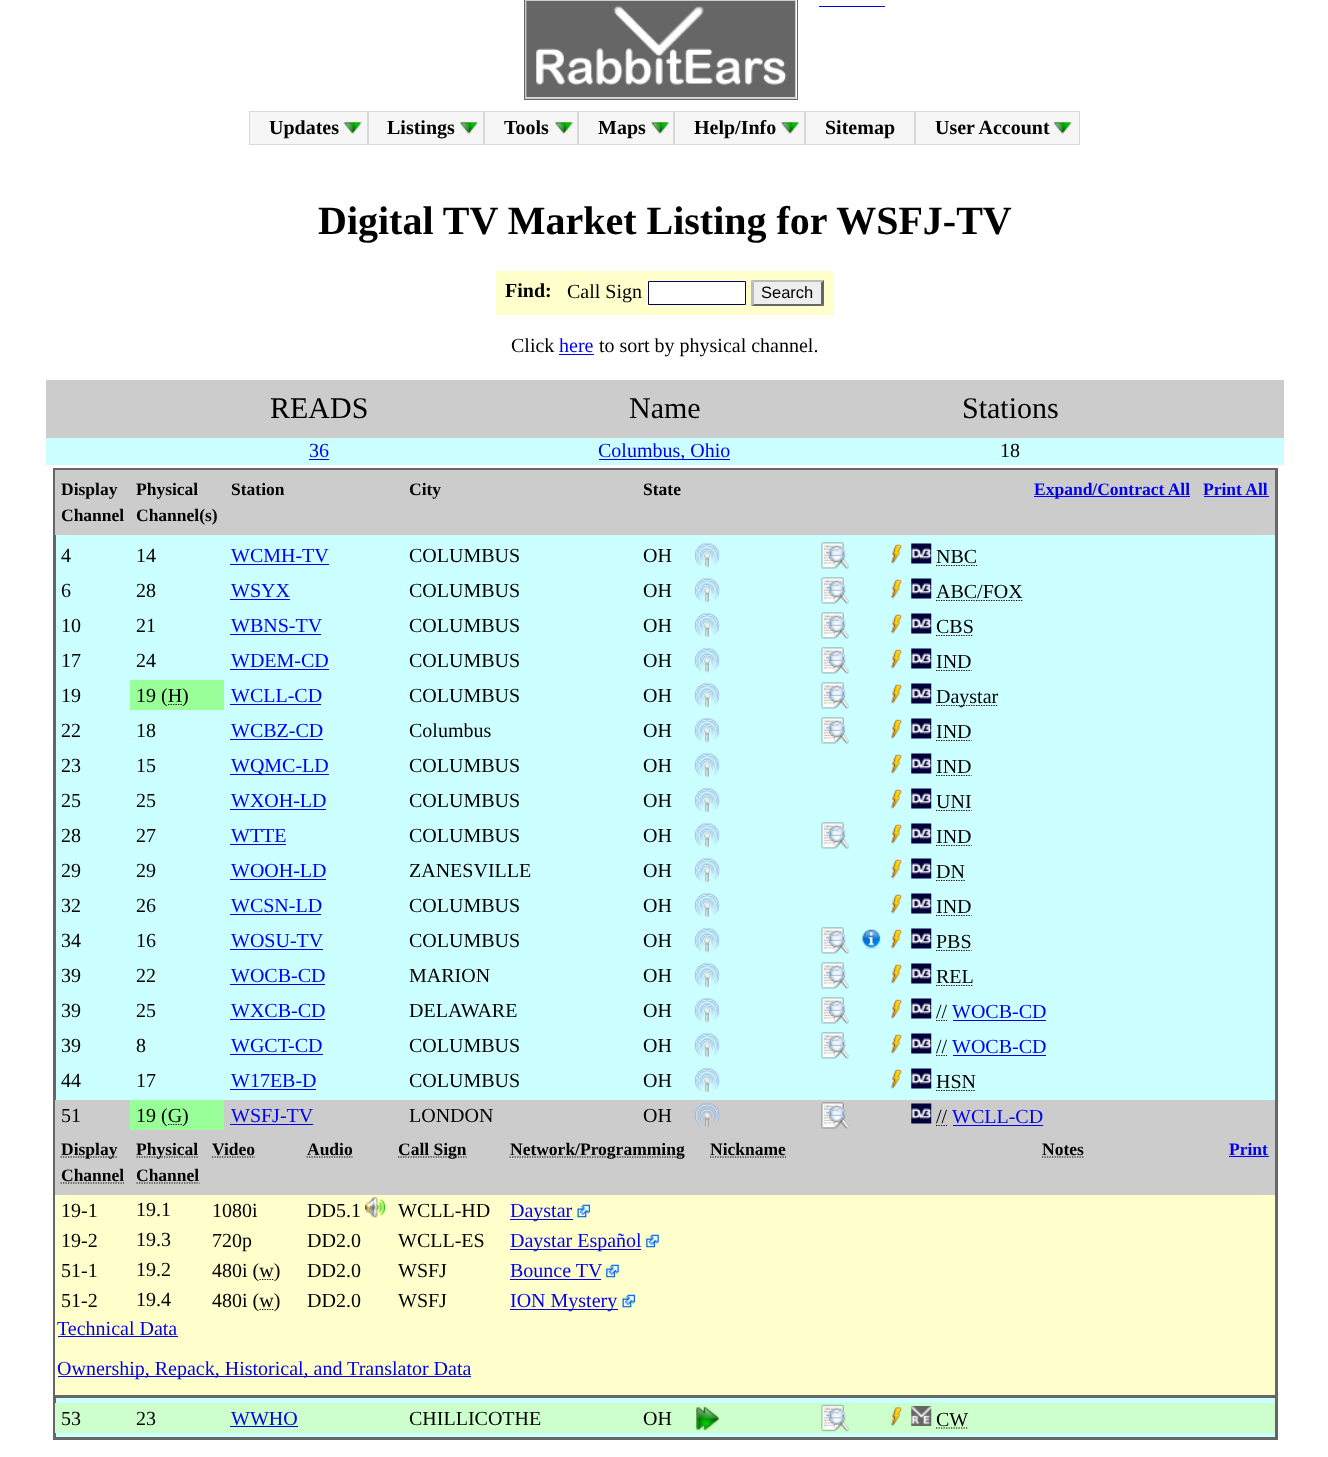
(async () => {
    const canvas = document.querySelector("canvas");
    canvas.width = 1328;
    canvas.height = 1457;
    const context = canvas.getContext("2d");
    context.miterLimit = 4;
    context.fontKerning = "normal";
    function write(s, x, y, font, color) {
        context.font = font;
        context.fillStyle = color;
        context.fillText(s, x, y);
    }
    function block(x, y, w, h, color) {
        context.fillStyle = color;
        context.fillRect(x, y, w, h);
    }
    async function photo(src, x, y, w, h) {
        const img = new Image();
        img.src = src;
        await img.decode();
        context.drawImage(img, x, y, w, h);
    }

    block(0, 0, 1328, 1457, "rgb(255, 255, 255)");
    context.strokeStyle = "rgb(204, 204, 204)";
    context.strokeRect(525.5, 0.5, 270, 98);
    await photo("media/1.png", 526, 1, 269, 97);
    context.strokeStyle = "rgb(102, 102, 102)";
    context.strokeRect(524.5, -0.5, 273, 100);
    block(819, 6, 66, 1, "rgb(0, 0, 238)");
    block(250, 112, 117, 32, "rgb(246, 246, 246)");
    await photo("media/2.png", 343, 121, 19, 13);
    context.strokeStyle = "rgb(217, 217, 217)";
    context.strokeRect(249.5, 111.5, 118, 33);
    write("Updates", 269, 134, "bold 20px Liberation Serif", "rgb(0, 0, 0)");
    block(369, 112, 114, 32, "rgb(246, 246, 246)");
    await photo("media/3.png", 460, 121, 18, 13);
    context.strokeRect(368.5, 111.5, 115, 33);
    write("Listings", 387, 134, "bold 20px Liberation Serif", "rgb(0, 0, 0)");
    block(485, 112, 92, 32, "rgb(246, 246, 246)");
    await photo("media/4.png", 555, 121, 18, 13);
    context.strokeRect(484.5, 111.5, 93, 33);
    write("Tools", 504, 134, "bold 20px Liberation Serif", "rgb(0, 0, 0)");
    block(579, 112, 94, 32, "rgb(246, 246, 246)");
    await photo("media/5.png", 651, 121, 18, 13);
    context.strokeRect(578.5, 111.5, 95, 33);
    write("Maps", 598, 134, "bold 20px Liberation Serif", "rgb(0, 0, 0)");
    block(675, 112, 129, 32, "rgb(246, 246, 246)");
    await photo("media/6.png", 781, 121, 18, 13);
    context.strokeRect(674.5, 111.5, 130, 33);
    write("Help/Info", 694, 134, "bold 20px Liberation Serif", "rgb(0, 0, 0)");
    context.fillStyle = "rgb(246, 246, 246)";
    context.beginPath();
    context.rect(805.5, 111.5, 109, 33);
    context.fill();
    context.stroke();
    write("Sitemap", 825, 134, "bold 20px Liberation Serif", "rgb(0, 0, 0)");
    block(916, 112, 163, 32, "rgb(246, 246, 246)");
    await photo("media/2.png", 1053, 121, 19, 13);
    context.strokeRect(915.5, 111.5, 164, 33);
    write("User Account", 935, 134, "bold 20px Liberation Serif", "rgb(0, 0, 0)");
    write("Digital TV Market Listing for WSFJ-TV", 318, 234, "bold 40px Liberation Serif", "rgb(0, 0, 0)");
    block(496, 271, 337, 44, "rgb(255, 255, 204)");
    write("Find:", 505, 297, "bold 20px Liberation Serif", "rgb(0, 0, 0)");
    write("Call Sign", 567, 298, "20px Liberation Serif", "rgb(0, 0, 0)");
    context.fillStyle = "rgb(255, 255, 255)";
    context.beginPath();
    context.rect(648.5, 281.5, 97, 23);
    context.fill();
    context.strokeStyle = "rgb(0, 0, 102)";
    context.stroke();
    block(751, 280, 73, 26, "rgb(238, 238, 238)");
    context.fillStyle = "rgb(187, 187, 187)";
    context.beginPath();
    context.moveTo(751, 280);
    context.lineTo(824, 280);
    context.lineTo(821, 282);
    context.lineTo(754, 282);
    context.closePath();
    context.fill();
    context.fillStyle = "rgb(102, 102, 102)";
    context.beginPath();
    context.moveTo(824, 280);
    context.lineTo(824, 306);
    context.lineTo(821, 304);
    context.lineTo(821, 282.5);
    context.closePath();
    context.fill();
    context.beginPath();
    context.moveTo(824, 306);
    context.lineTo(751, 306);
    context.lineTo(754, 304);
    context.lineTo(821, 304);
    context.closePath();
    context.fill();
    context.fillStyle = "rgb(187, 187, 187)";
    context.beginPath();
    context.moveTo(751, 306);
    context.lineTo(751, 280);
    context.lineTo(754, 282.5);
    context.lineTo(754, 304);
    context.closePath();
    context.fill();
    write("Search", 761, 298, "16.5px Liberation Sans", "rgb(0, 0, 0)");
    write("Click", 511, 352, "20px Liberation Serif", "rgb(0, 0, 0)");
    write("here", 559, 352, "20px Liberation Serif", "rgb(0, 0, 238)");
    block(559, 354, 35, 1, "rgb(0, 0, 238)");
    write("to sort by physical channel.", 599, 352, "20px Liberation Serif", "rgb(0, 0, 0)");
    block(46, 380, 1238, 58, "rgb(204, 204, 204)");
    write("READS", 270, 418, "30px Liberation Serif", "rgb(0, 0, 0)");
    write("Name", 629, 418, "30px Liberation Serif", "rgb(0, 0, 0)");
    write("Stations", 962, 418, "30px Liberation Serif", "rgb(0, 0, 0)");
    block(46, 438, 1238, 27, "rgb(204, 255, 255)");
    write("36", 309, 457, "20px Liberation Serif", "rgb(0, 0, 238)");
    block(309, 459, 20, 1, "rgb(0, 0, 238)");
    block(599, 459, 131, 1, "rgb(0, 0, 238)");
    write("Columbus, Ohio", 598, 457, "20px Liberation Serif", "rgb(0, 0, 238)");
    write("18", 1000, 457, "20px Liberation Serif", "rgb(0, 0, 0)");
    block(56, 535, 1219, 902, "rgb(204, 255, 255)");
    context.strokeStyle = "rgb(102, 102, 102)";
    context.lineWidth = 3;
    context.strokeRect(54.5, 469.5, 1222, 969);
    block(55, 470, 1220, 65, "rgb(204, 204, 204)");
    write("Display", 61, 495, "bold 17.5px Liberation Serif", "rgb(0, 0, 0)");
    write("Channel", 61, 521, "bold 17.5px Liberation Serif", "rgb(0, 0, 0)");
    write("Physical", 136, 495, "bold 17.5px Liberation Serif", "rgb(0, 0, 0)");
    write("Channel(s)", 136, 521, "bold 17.5px Liberation Serif", "rgb(0, 0, 0)");
    write("Station", 231, 495, "bold 17.5px Liberation Serif", "rgb(0, 0, 0)");
    write("City", 409, 495, "bold 17.5px Liberation Serif", "rgb(0, 0, 0)");
    write("State", 643, 495, "bold 17.5px Liberation Serif", "rgb(0, 0, 0)");
    block(1034, 496, 156, 1, "rgb(0, 0, 238)");
    write("Expand/Contract All", 1034, 495, "bold 17.5px Liberation Serif", "rgb(0, 0, 238)");
    write("Print All", 1203, 495, "bold 17.5px Liberation Serif", "rgb(0, 0, 238)");
    block(1204, 496, 65, 1, "rgb(0, 0, 238)");
    write("4", 61, 562, "20px Liberation Serif", "rgb(0, 0, 0)");
    write("14", 136, 562, "20px Liberation Serif", "rgb(0, 0, 0)");
    write("WCMH-TV", 231, 562, "20px Liberation Serif", "rgb(0, 0, 238)");
    block(230, 564, 99, 1, "rgb(0, 0, 238)");
    write("COLUMBUS", 409, 562, "20px Liberation Serif", "rgb(0, 0, 0)");
    write("OH", 643, 562, "20px Liberation Serif", "rgb(0, 0, 0)");
    await photo("media/7.png", 695, 543, 25, 25);
    await photo("media/8.png", 821, 542, 28, 27);
    await photo("media/9.png", 891, 544, 11, 20);
    await photo("media/10.png", 911, 543, 21, 21);
    write("NBC", 936, 563, "20px Liberation Serif", "rgb(0, 0, 0)");
    context.beginPath();
    context.moveTo(936, 565.5);
    context.lineTo(977, 565.5);
    context.strokeStyle = "rgb(0, 0, 0)";
    context.lineWidth = 1.2;
    context.setLineDash([1.25, 1.25]);
    context.stroke();
    write("6", 61, 597, "20px Liberation Serif", "rgb(0, 0, 0)");
    write("28", 136, 597, "20px Liberation Serif", "rgb(0, 0, 0)");
    write("WSYX", 231, 597, "20px Liberation Serif", "rgb(0, 0, 238)");
    block(230, 599, 60, 1, "rgb(0, 0, 238)");
    write("COLUMBUS", 409, 597, "20px Liberation Serif", "rgb(0, 0, 0)");
    write("OH", 643, 597, "20px Liberation Serif", "rgb(0, 0, 0)");
    await photo("media/11.png", 694, 578, 26, 25);
    await photo("media/12.png", 821, 577, 28, 27);
    await photo("media/13.png", 891, 579, 11, 20);
    await photo("media/14.png", 911, 578, 21, 21);
    write("ABC/FOX", 936, 598, "20px Liberation Serif", "rgb(0, 0, 0)");
    context.beginPath();
    context.moveTo(936, 600.5);
    context.lineTo(1022.5, 600.5);
    context.stroke();
    write("10", 61, 632, "20px Liberation Serif", "rgb(0, 0, 0)");
    write("21", 136, 632, "20px Liberation Serif", "rgb(0, 0, 0)");
    write("WBNS-TV", 231, 632, "20px Liberation Serif", "rgb(0, 0, 238)");
    block(230, 634, 91, 1, "rgb(0, 0, 238)");
    write("COLUMBUS", 409, 632, "20px Liberation Serif", "rgb(0, 0, 0)");
    write("OH", 643, 632, "20px Liberation Serif", "rgb(0, 0, 0)");
    await photo("media/11.png", 694, 613, 26, 25);
    await photo("media/12.png", 821, 612, 28, 27);
    await photo("media/13.png", 891, 614, 11, 20);
    await photo("media/14.png", 911, 613, 21, 21);
    write("CBS", 936, 633, "20px Liberation Serif", "rgb(0, 0, 0)");
    context.beginPath();
    context.moveTo(936, 635.5);
    context.lineTo(973.5, 635.5);
    context.stroke();
    write("17", 61, 667, "20px Liberation Serif", "rgb(0, 0, 0)");
    write("24", 136, 667, "20px Liberation Serif", "rgb(0, 0, 0)");
    write("WDEM-CD", 231, 667, "20px Liberation Serif", "rgb(0, 0, 238)");
    block(230, 669, 99, 1, "rgb(0, 0, 238)");
    write("COLUMBUS", 409, 667, "20px Liberation Serif", "rgb(0, 0, 0)");
    write("OH", 643, 667, "20px Liberation Serif", "rgb(0, 0, 0)");
    await photo("media/11.png", 694, 648, 26, 25);
    await photo("media/12.png", 821, 647, 28, 27);
    await photo("media/13.png", 891, 649, 11, 20);
    await photo("media/14.png", 911, 648, 21, 21);
    write("IND", 936, 668, "20px Liberation Serif", "rgb(0, 0, 0)");
    context.beginPath();
    context.moveTo(936, 670.5);
    context.lineTo(971.5, 670.5);
    context.stroke();
    write("19", 61, 702, "20px Liberation Serif", "rgb(0, 0, 0)");
    block(130, 680, 94, 30, "rgb(153, 255, 153)");
    write("19 (H)", 136, 702, "20px Liberation Serif", "rgb(0, 0, 0)");
    context.beginPath();
    context.moveTo(168, 704.5);
    context.lineTo(182.5, 704.5);
    context.stroke();
    write("WCLL-CD", 231, 702, "20px Liberation Serif", "rgb(0, 0, 238)");
    block(230, 704, 91, 1, "rgb(0, 0, 238)");
    write("COLUMBUS", 409, 702, "20px Liberation Serif", "rgb(0, 0, 0)");
    write("OH", 643, 702, "20px Liberation Serif", "rgb(0, 0, 0)");
    await photo("media/11.png", 694, 683, 26, 25);
    await photo("media/12.png", 821, 682, 28, 27);
    await photo("media/13.png", 891, 684, 11, 20);
    await photo("media/14.png", 911, 683, 21, 21);
    context.beginPath();
    context.moveTo(936, 705.5);
    context.lineTo(998, 705.5);
    context.stroke();
    write("Daystar", 936, 703, "20px Liberation Serif", "rgb(0, 0, 0)");
    write("22", 61, 737, "20px Liberation Serif", "rgb(0, 0, 0)");
    write("18", 136, 737, "20px Liberation Serif", "rgb(0, 0, 0)");
    write("WCBZ-CD", 231, 737, "20px Liberation Serif", "rgb(0, 0, 238)");
    block(230, 739, 93, 1, "rgb(0, 0, 238)");
    write("Columbus", 409, 737, "20px Liberation Serif", "rgb(0, 0, 0)");
    write("OH", 643, 737, "20px Liberation Serif", "rgb(0, 0, 0)");
    await photo("media/11.png", 694, 718, 26, 25);
    await photo("media/12.png", 821, 717, 28, 27);
    await photo("media/13.png", 891, 719, 11, 20);
    await photo("media/14.png", 911, 718, 21, 21);
    write("IND", 936, 738, "20px Liberation Serif", "rgb(0, 0, 0)");
    context.beginPath();
    context.moveTo(936, 740.5);
    context.lineTo(971.5, 740.5);
    context.stroke();
    write("23", 61, 772, "20px Liberation Serif", "rgb(0, 0, 0)");
    write("15", 136, 772, "20px Liberation Serif", "rgb(0, 0, 0)");
    block(230, 774, 99, 1, "rgb(0, 0, 238)");
    write("WQMC-LD", 231, 772, "20px Liberation Serif", "rgb(0, 0, 238)");
    write("COLUMBUS", 409, 772, "20px Liberation Serif", "rgb(0, 0, 0)");
    write("OH", 643, 772, "20px Liberation Serif", "rgb(0, 0, 0)");
    await photo("media/11.png", 694, 753, 26, 25);
    await photo("media/13.png", 891, 754, 11, 20);
    await photo("media/14.png", 911, 753, 21, 21);
    write("IND", 936, 773, "20px Liberation Serif", "rgb(0, 0, 0)");
    context.beginPath();
    context.moveTo(936, 775.5);
    context.lineTo(971.5, 775.5);
    context.stroke();
    write("25", 61, 807, "20px Liberation Serif", "rgb(0, 0, 0)");
    write("25", 136, 807, "20px Liberation Serif", "rgb(0, 0, 0)");
    write("WXOH-LD", 231, 807, "20px Liberation Serif", "rgb(0, 0, 238)");
    block(230, 809, 96, 1, "rgb(0, 0, 238)");
    write("COLUMBUS", 409, 807, "20px Liberation Serif", "rgb(0, 0, 0)");
    write("OH", 643, 807, "20px Liberation Serif", "rgb(0, 0, 0)");
    await photo("media/11.png", 694, 788, 26, 25);
    await photo("media/13.png", 891, 789, 11, 20);
    await photo("media/14.png", 911, 788, 21, 21);
    write("UNI", 936, 808, "20px Liberation Serif", "rgb(0, 0, 0)");
    context.beginPath();
    context.moveTo(936, 810.5);
    context.lineTo(971.5, 810.5);
    context.stroke();
    write("28", 61, 842, "20px Liberation Serif", "rgb(0, 0, 0)");
    write("27", 136, 842, "20px Liberation Serif", "rgb(0, 0, 0)");
    write("WTTE", 231, 842, "20px Liberation Serif", "rgb(0, 0, 238)");
    block(230, 844, 56, 1, "rgb(0, 0, 238)");
    write("COLUMBUS", 409, 842, "20px Liberation Serif", "rgb(0, 0, 0)");
    write("OH", 643, 842, "20px Liberation Serif", "rgb(0, 0, 0)");
    await photo("media/11.png", 694, 823, 26, 25);
    await photo("media/12.png", 821, 822, 28, 27);
    await photo("media/13.png", 891, 824, 11, 20);
    await photo("media/14.png", 911, 823, 21, 21);
    write("IND", 936, 843, "20px Liberation Serif", "rgb(0, 0, 0)");
    context.beginPath();
    context.moveTo(936, 845.5);
    context.lineTo(971.5, 845.5);
    context.stroke();
    write("29", 61, 877, "20px Liberation Serif", "rgb(0, 0, 0)");
    write("29", 136, 877, "20px Liberation Serif", "rgb(0, 0, 0)");
    write("WOOH-LD", 231, 877, "20px Liberation Serif", "rgb(0, 0, 238)");
    block(230, 879, 96, 1, "rgb(0, 0, 238)");
    write("ZANESVILLE", 409, 877, "20px Liberation Serif", "rgb(0, 0, 0)");
    write("OH", 643, 877, "20px Liberation Serif", "rgb(0, 0, 0)");
    await photo("media/11.png", 694, 858, 26, 25);
    await photo("media/13.png", 891, 859, 11, 20);
    await photo("media/14.png", 911, 858, 21, 21);
    write("DN", 936, 878, "20px Liberation Serif", "rgb(0, 0, 0)");
    context.beginPath();
    context.moveTo(936, 880.5);
    context.lineTo(965, 880.5);
    context.stroke();
    write("32", 61, 912, "20px Liberation Serif", "rgb(0, 0, 0)");
    write("26", 136, 912, "20px Liberation Serif", "rgb(0, 0, 0)");
    write("WCSN-LD", 231, 912, "20px Liberation Serif", "rgb(0, 0, 238)");
    block(230, 914, 91, 1, "rgb(0, 0, 238)");
    write("COLUMBUS", 409, 912, "20px Liberation Serif", "rgb(0, 0, 0)");
    write("OH", 643, 912, "20px Liberation Serif", "rgb(0, 0, 0)");
    await photo("media/11.png", 694, 893, 26, 25);
    await photo("media/13.png", 891, 894, 11, 20);
    await photo("media/14.png", 911, 893, 21, 21);
    write("IND", 936, 913, "20px Liberation Serif", "rgb(0, 0, 0)");
    context.beginPath();
    context.moveTo(936, 915.5);
    context.lineTo(971.5, 915.5);
    context.stroke();
    write("34", 61, 947, "20px Liberation Serif", "rgb(0, 0, 0)");
    write("16", 136, 947, "20px Liberation Serif", "rgb(0, 0, 0)");
    write("WOSU-TV", 231, 947, "20px Liberation Serif", "rgb(0, 0, 238)");
    block(230, 949, 93, 1, "rgb(0, 0, 238)");
    write("COLUMBUS", 409, 947, "20px Liberation Serif", "rgb(0, 0, 0)");
    write("OH", 643, 947, "20px Liberation Serif", "rgb(0, 0, 0)");
    await photo("media/11.png", 694, 928, 26, 25);
    await photo("media/12.png", 821, 927, 28, 27);
    await photo("media/15.png", 862, 929, 19, 20);
    await photo("media/13.png", 891, 929, 11, 20);
    await photo("media/14.png", 911, 928, 21, 21);
    write("PBS", 936, 948, "20px Liberation Serif", "rgb(0, 0, 0)");
    context.beginPath();
    context.moveTo(936, 950.5);
    context.lineTo(971.5, 950.5);
    context.stroke();
    write("39", 61, 982, "20px Liberation Serif", "rgb(0, 0, 0)");
    write("22", 136, 982, "20px Liberation Serif", "rgb(0, 0, 0)");
    write("WOCB-CD", 231, 982, "20px Liberation Serif", "rgb(0, 0, 238)");
    block(230, 984, 95, 1, "rgb(0, 0, 238)");
    write("MARION", 409, 982, "20px Liberation Serif", "rgb(0, 0, 0)");
    write("OH", 643, 982, "20px Liberation Serif", "rgb(0, 0, 0)");
    await photo("media/11.png", 694, 963, 26, 25);
    await photo("media/12.png", 821, 962, 28, 27);
    await photo("media/13.png", 891, 964, 11, 20);
    await photo("media/14.png", 911, 963, 21, 21);
    write("REL", 936, 983, "20px Liberation Serif", "rgb(0, 0, 0)");
    context.beginPath();
    context.moveTo(936, 985.5);
    context.lineTo(973.5, 985.5);
    context.stroke();
    write("39", 61, 1017, "20px Liberation Serif", "rgb(0, 0, 0)");
    write("25", 136, 1017, "20px Liberation Serif", "rgb(0, 0, 0)");
    write("WXCB-CD", 231, 1017, "20px Liberation Serif", "rgb(0, 0, 238)");
    block(230, 1019, 95, 1, "rgb(0, 0, 238)");
    write("DELAWARE", 409, 1017, "20px Liberation Serif", "rgb(0, 0, 0)");
    write("OH", 643, 1017, "20px Liberation Serif", "rgb(0, 0, 0)");
    await photo("media/11.png", 694, 998, 26, 25);
    await photo("media/12.png", 821, 997, 28, 27);
    await photo("media/13.png", 891, 999, 11, 20);
    await photo("media/14.png", 911, 998, 21, 21);
    write("//", 936, 1018, "20px Liberation Serif", "rgb(0, 0, 0)");
    context.beginPath();
    context.moveTo(936, 1020.5);
    context.lineTo(947, 1020.5);
    context.stroke();
    write("WOCB-CD", 952, 1018, "20px Liberation Serif", "rgb(0, 0, 238)");
    block(953, 1020, 93, 1, "rgb(0, 0, 238)");
    write("39", 61, 1052, "20px Liberation Serif", "rgb(0, 0, 0)");
    write("8", 136, 1052, "20px Liberation Serif", "rgb(0, 0, 0)");
    write("WGCT-CD", 231, 1052, "20px Liberation Serif", "rgb(0, 0, 238)");
    block(230, 1054, 93, 1, "rgb(0, 0, 238)");
    write("COLUMBUS", 409, 1052, "20px Liberation Serif", "rgb(0, 0, 0)");
    write("OH", 643, 1052, "20px Liberation Serif", "rgb(0, 0, 0)");
    await photo("media/11.png", 694, 1033, 26, 25);
    await photo("media/12.png", 821, 1032, 28, 27);
    await photo("media/13.png", 891, 1034, 11, 20);
    await photo("media/14.png", 911, 1033, 21, 21);
    write("//", 936, 1053, "20px Liberation Serif", "rgb(0, 0, 0)");
    context.beginPath();
    context.moveTo(936, 1055.5);
    context.lineTo(947, 1055.5);
    context.stroke();
    write("WOCB-CD", 952, 1053, "20px Liberation Serif", "rgb(0, 0, 238)");
    block(953, 1055, 93, 1, "rgb(0, 0, 238)");
    write("44", 61, 1087, "20px Liberation Serif", "rgb(0, 0, 0)");
    write("17", 136, 1087, "20px Liberation Serif", "rgb(0, 0, 0)");
    write("W17EB-D", 231, 1087, "20px Liberation Serif", "rgb(0, 0, 238)");
    block(230, 1089, 86, 1, "rgb(0, 0, 238)");
    write("COLUMBUS", 409, 1087, "20px Liberation Serif", "rgb(0, 0, 0)");
    write("OH", 643, 1087, "20px Liberation Serif", "rgb(0, 0, 0)");
    await photo("media/11.png", 694, 1068, 26, 25);
    await photo("media/13.png", 891, 1069, 11, 20);
    await photo("media/14.png", 911, 1068, 21, 21);
    write("HSN", 936, 1088, "20px Liberation Serif", "rgb(0, 0, 0)");
    context.beginPath();
    context.moveTo(936, 1090.5);
    context.lineTo(976, 1090.5);
    context.stroke();
    block(55, 1100, 1220, 95, "rgb(204, 204, 204)");
    write("51", 61, 1122, "20px Liberation Serif", "rgb(0, 0, 0)");
    block(130, 1100, 94, 30, "rgb(153, 255, 153)");
    write("19 (G)", 136, 1122, "20px Liberation Serif", "rgb(0, 0, 0)");
    context.beginPath();
    context.moveTo(168, 1124.5);
    context.lineTo(182.5, 1124.5);
    context.stroke();
    write("WSFJ-TV", 231, 1122, "20px Liberation Serif", "rgb(0, 0, 238)");
    block(230, 1124, 83, 1, "rgb(0, 0, 238)");
    write("LONDON", 409, 1122, "20px Liberation Serif", "rgb(0, 0, 0)");
    write("OH", 643, 1122, "20px Liberation Serif", "rgb(0, 0, 0)");
    await photo("media/16.png", 695, 1103, 25, 25);
    await photo("media/17.png", 821, 1102, 28, 27);
    await photo("media/18.png", 911, 1103, 21, 21);
    write("//", 936, 1123, "20px Liberation Serif", "rgb(0, 0, 0)");
    context.beginPath();
    context.moveTo(936, 1125.5);
    context.lineTo(947, 1125.5);
    context.stroke();
    write("WCLL-CD", 952, 1123, "20px Liberation Serif", "rgb(0, 0, 238)");
    block(953, 1125, 90, 1, "rgb(0, 0, 238)");
    block(55, 1195, 1220, 200, "rgb(255, 255, 204)");
    block(55, 1395, 1220, 3, "rgb(102, 102, 102)");
    context.beginPath();
    context.moveTo(60.5, 1157);
    context.lineTo(117, 1157);
    context.stroke();
    write("Display", 61, 1155, "bold 17.5px Liberation Serif", "rgb(0, 0, 0)");
    write("Channel", 61, 1181, "bold 17.5px Liberation Serif", "rgb(0, 0, 0)");
    context.beginPath();
    context.moveTo(60.5, 1183);
    context.lineTo(124, 1183);
    context.stroke();
    context.beginPath();
    context.moveTo(136.5, 1157);
    context.lineTo(198.5, 1157);
    context.stroke();
    write("Physical", 136, 1155, "bold 17.5px Liberation Serif", "rgb(0, 0, 0)");
    write("Channel", 136, 1181, "bold 17.5px Liberation Serif", "rgb(0, 0, 0)");
    context.beginPath();
    context.moveTo(136.5, 1183);
    context.lineTo(199.5, 1183);
    context.stroke();
    write("Video", 212, 1155, "bold 17.5px Liberation Serif", "rgb(0, 0, 0)");
    context.beginPath();
    context.moveTo(212, 1157);
    context.lineTo(255, 1157);
    context.stroke();
    write("Audio", 307, 1155, "bold 17.5px Liberation Serif", "rgb(0, 0, 0)");
    context.beginPath();
    context.moveTo(306.5, 1157);
    context.lineTo(352.5, 1157);
    context.stroke();
    context.beginPath();
    context.moveTo(398, 1157);
    context.lineTo(466.5, 1157);
    context.stroke();
    write("Call Sign", 398, 1155, "bold 17.5px Liberation Serif", "rgb(0, 0, 0)");
    context.beginPath();
    context.moveTo(509.5, 1157);
    context.lineTo(684.5, 1157);
    context.stroke();
    write("Network/Programming", 510, 1155, "bold 17.5px Liberation Serif", "rgb(0, 0, 0)");
    write("Nickname", 710, 1155, "bold 17.5px Liberation Serif", "rgb(0, 0, 0)");
    context.beginPath();
    context.moveTo(710, 1157);
    context.lineTo(786, 1157);
    context.stroke();
    write("Notes", 1042, 1155, "bold 17.5px Liberation Serif", "rgb(0, 0, 0)");
    context.beginPath();
    context.moveTo(1042, 1157);
    context.lineTo(1083.5, 1157);
    context.stroke();
    write("Print", 1229, 1155, "bold 17.5px Liberation Serif", "rgb(0, 0, 238)");
    block(1229, 1156, 40, 1, "rgb(0, 0, 238)");
    write("19-1", 61, 1217, "20px Liberation Serif", "rgb(0, 0, 0)");
    write("19.1", 136, 1216, "20px Liberation Serif", "rgb(0, 0, 0)");
    write("1080i", 212, 1217, "20px Liberation Serif", "rgb(0, 0, 0)");
    write("DD5.1", 307, 1217, "20px Liberation Serif", "rgb(0, 0, 0)");
    await photo("media/19.png", 365, 1197, 20, 21);
    write("WCLL-HD", 398, 1217, "20px Liberation Serif", "rgb(0, 0, 0)");
    block(510, 1219, 63, 1, "rgb(0, 0, 238)");
    write("Daystar", 510, 1217, "20px Liberation Serif", "rgb(0, 0, 238)");
    await photo("media/20.png", 577, 1204, 13, 14);
    write("19-2", 61, 1247, "20px Liberation Serif", "rgb(0, 0, 0)");
    write("19.3", 136, 1246, "20px Liberation Serif", "rgb(0, 0, 0)");
    write("720p", 212, 1247, "20px Liberation Serif", "rgb(0, 0, 0)");
    write("DD2.0", 307, 1247, "20px Liberation Serif", "rgb(0, 0, 0)");
    write("WCLL-ES", 398, 1247, "20px Liberation Serif", "rgb(0, 0, 0)");
    block(510, 1249, 131, 1, "rgb(0, 0, 238)");
    write("Daystar Español", 510, 1247, "20px Liberation Serif", "rgb(0, 0, 238)");
    await photo("media/21.png", 646, 1234, 13, 14);
    write("51-1", 61, 1277, "20px Liberation Serif", "rgb(0, 0, 0)");
    write("19.2", 136, 1276, "20px Liberation Serif", "rgb(0, 0, 0)");
    write("480i (w)", 212, 1277, "20px Liberation Serif", "rgb(0, 0, 0)");
    context.beginPath();
    context.moveTo(259.5, 1279.5);
    context.lineTo(274, 1279.5);
    context.stroke();
    write("DD2.0", 307, 1277, "20px Liberation Serif", "rgb(0, 0, 0)");
    write("WSFJ", 398, 1277, "20px Liberation Serif", "rgb(0, 0, 0)");
    write("Bounce TV", 510, 1277, "20px Liberation Serif", "rgb(0, 0, 238)");
    block(510, 1279, 91, 1, "rgb(0, 0, 238)");
    await photo("media/21.png", 606, 1264, 13, 14);
    write("51-2", 61, 1307, "20px Liberation Serif", "rgb(0, 0, 0)");
    write("19.4", 136, 1306, "20px Liberation Serif", "rgb(0, 0, 0)");
    write("480i (w)", 212, 1307, "20px Liberation Serif", "rgb(0, 0, 0)");
    context.beginPath();
    context.moveTo(259.5, 1309.5);
    context.lineTo(274, 1309.5);
    context.stroke();
    write("DD2.0", 307, 1307, "20px Liberation Serif", "rgb(0, 0, 0)");
    write("WSFJ", 398, 1307, "20px Liberation Serif", "rgb(0, 0, 0)");
    block(510, 1309, 108, 1, "rgb(0, 0, 238)");
    write("ION Mystery", 510, 1307, "20px Liberation Serif", "rgb(0, 0, 238)");
    await photo("media/22.png", 622, 1294, 13, 14);
    write("Technical Data", 57, 1335, "20px Liberation Serif", "rgb(0, 0, 238)");
    block(58, 1336, 120, 1, "rgb(0, 0, 238)");
    block(58, 1376, 413, 1, "rgb(0, 0, 238)");
    write("Ownership, Repack, Historical, and Translator Data", 57, 1375, "20px Liberation Serif", "rgb(0, 0, 238)");
    block(55, 1403, 1220, 30, "rgb(204, 255, 204)");
    write("53", 61, 1425, "20px Liberation Serif", "rgb(0, 0, 0)");
    write("23", 136, 1425, "20px Liberation Serif", "rgb(0, 0, 0)");
    write("WWHO", 231, 1425, "20px Liberation Serif", "rgb(0, 0, 238)");
    block(230, 1426, 68, 1, "rgb(0, 0, 238)");
    write("CHILLICOTHE", 409, 1425, "20px Liberation Serif", "rgb(0, 0, 0)");
    write("OH", 643, 1425, "20px Liberation Serif", "rgb(0, 0, 0)");
    await photo("media/23.png", 696, 1407, 23, 23);
    await photo("media/24.png", 821, 1404, 28, 28);
    await photo("media/25.png", 891, 1407, 11, 19);
    await photo("media/26.png", 911, 1406, 21, 20);
    write("CW", 936, 1426, "20px Liberation Serif", "rgb(0, 0, 0)");
    context.beginPath();
    context.moveTo(936, 1428);
    context.lineTo(968, 1428);
    context.stroke();
})();
